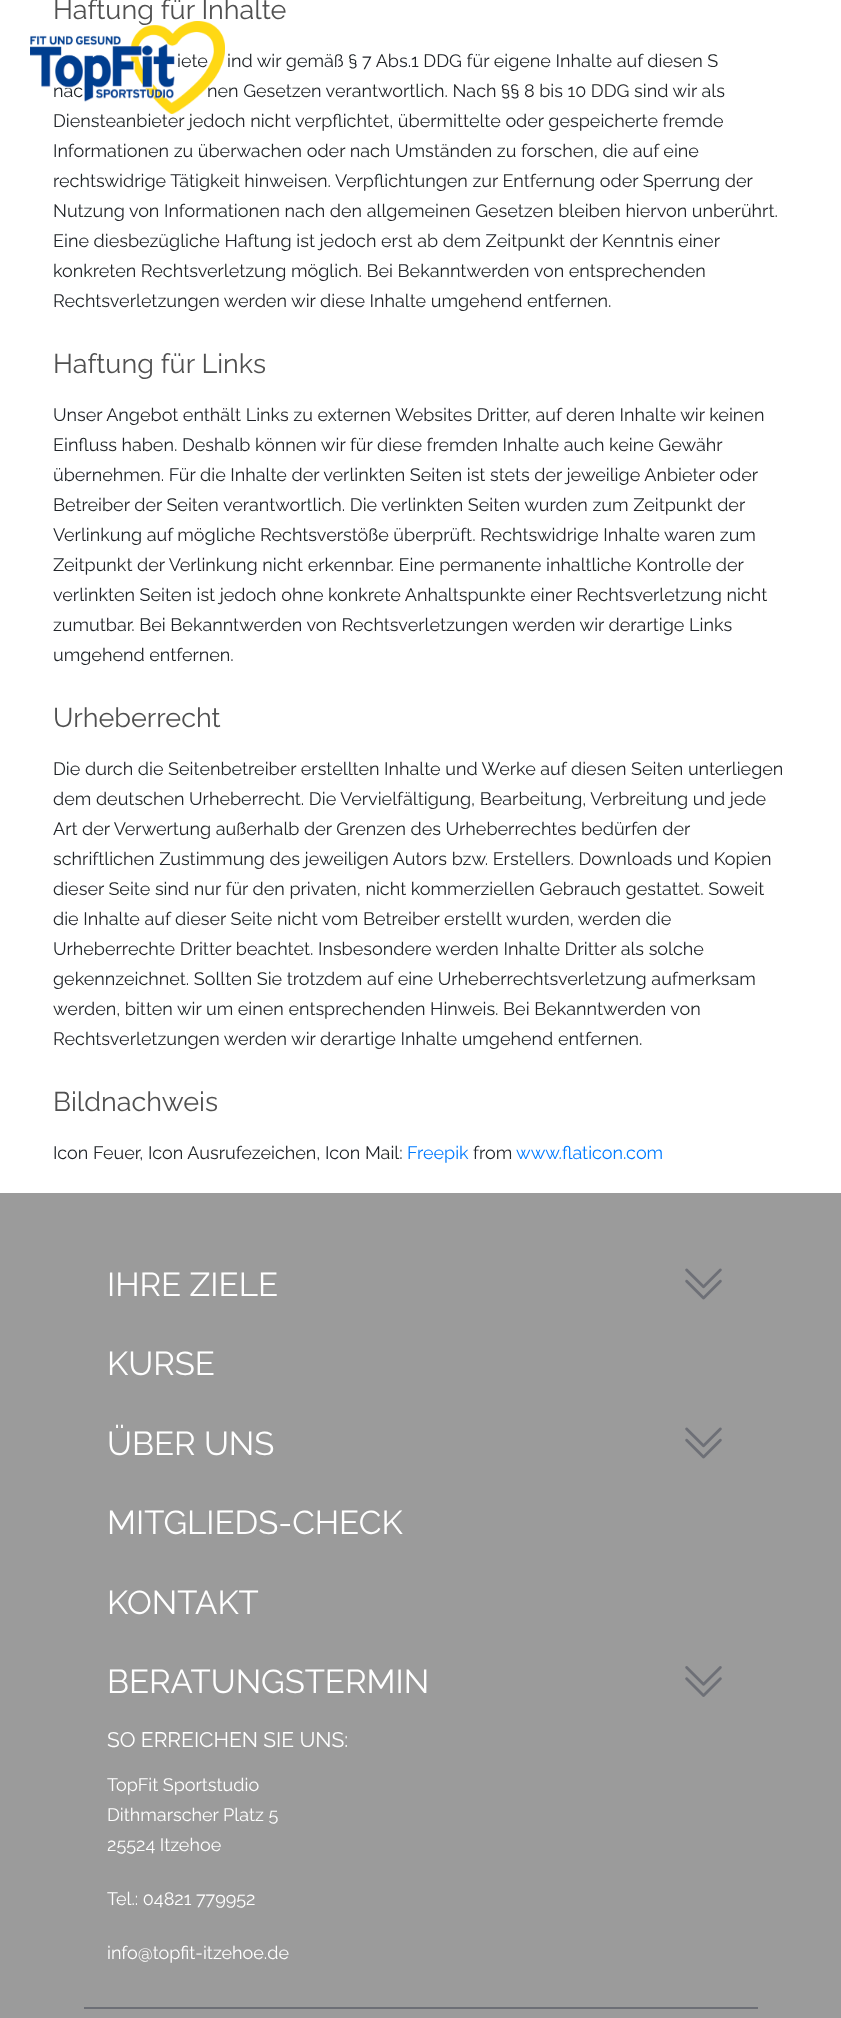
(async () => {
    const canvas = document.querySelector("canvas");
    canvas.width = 841;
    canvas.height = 2018;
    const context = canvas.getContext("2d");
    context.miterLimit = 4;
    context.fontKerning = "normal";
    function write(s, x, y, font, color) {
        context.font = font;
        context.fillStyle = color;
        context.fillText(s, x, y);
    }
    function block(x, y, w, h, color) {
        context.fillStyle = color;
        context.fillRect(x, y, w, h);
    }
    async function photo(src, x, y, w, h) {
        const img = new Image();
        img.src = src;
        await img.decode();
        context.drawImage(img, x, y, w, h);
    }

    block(0, 0, 841, 2018, "rgb(255, 255, 255)");
    write("Haftung für Inhalte", 53, 19, "27px Raleway", "rgb(80, 80, 80)");
    write("iete", 177, 67, "18px Raleway", "rgb(33, 37, 41)");
    write("ind wir gemäß § 7 Abs.1 DDG für eigene Inhalte auf diesen S", 227, 67, "18px Raleway", "rgb(33, 37, 41)");
    write("nac", 53, 97, "18px Raleway", "rgb(33, 37, 41)");
    write("nen Gesetzen verantwortlich. Nach §§ 8 bis 10 DDG sind wir als", 207, 97, "18px Raleway", "rgb(33, 37, 41)");
    write("Diensteanbieter jedoch nicht verpflichtet, übermittelte oder gespeicherte fremde", 53, 127, "18px Raleway", "rgb(33, 37, 41)");
    write("Informationen zu überwachen oder nach Umständen zu forschen, die auf eine", 53, 157, "18px Raleway", "rgb(33, 37, 41)");
    write("rechtswidrige Tätigkeit hinweisen. Verpflichtungen zur Entfernung oder Sperrung der", 53, 187, "18px Raleway", "rgb(33, 37, 41)");
    write("Nutzung von Informationen nach den allgemeinen Gesetzen bleiben hiervon unberührt.", 53, 217, "18px Raleway", "rgb(33, 37, 41)");
    write("Eine diesbezügliche Haftung ist jedoch erst ab dem Zeitpunkt der Kenntnis einer", 53, 247, "18px Raleway", "rgb(33, 37, 41)");
    write("konkreten Rechtsverletzung möglich. Bei Bekanntwerden von entsprechenden", 53, 277, "18px Raleway", "rgb(33, 37, 41)");
    write("Rechtsverletzungen werden wir diese Inhalte umgehend entfernen.", 53, 307, "18px Raleway", "rgb(33, 37, 41)");
    write("Haftung für Links", 53, 373, "27px Raleway", "rgb(80, 80, 80)");
    write("Unser Angebot enthält Links zu externen Websites Dritter, auf deren Inhalte wir keinen", 53, 421, "18px Raleway", "rgb(33, 37, 41)");
    write("Einfluss haben. Deshalb können wir für diese fremden Inhalte auch keine Gewähr", 53, 451, "18px Raleway", "rgb(33, 37, 41)");
    write("übernehmen. Für die Inhalte der verlinkten Seiten ist stets der jeweilige Anbieter oder", 53, 481, "18px Raleway", "rgb(33, 37, 41)");
    write("Betreiber der Seiten verantwortlich. Die verlinkten Seiten wurden zum Zeitpunkt der", 53, 511, "18px Raleway", "rgb(33, 37, 41)");
    write("Verlinkung auf mögliche Rechtsverstöße überprüft. Rechtswidrige Inhalte waren zum", 53, 541, "18px Raleway", "rgb(33, 37, 41)");
    write("Zeitpunkt der Verlinkung nicht erkennbar. Eine permanente inhaltliche Kontrolle der", 53, 571, "18px Raleway", "rgb(33, 37, 41)");
    write("verlinkten Seiten ist jedoch ohne konkrete Anhaltspunkte einer Rechtsverletzung nicht", 53, 601, "18px Raleway", "rgb(33, 37, 41)");
    write("zumutbar. Bei Bekanntwerden von Rechtsverletzungen werden wir derartige Links", 53, 631, "18px Raleway", "rgb(33, 37, 41)");
    write("umgehend entfernen.", 53, 661, "18px Raleway", "rgb(33, 37, 41)");
    write("Urheberrecht", 53, 727, "27px Raleway", "rgb(80, 80, 80)");
    write("Die durch die Seitenbetreiber erstellten Inhalte und Werke auf diesen Seiten unterliegen", 53, 775, "18px Raleway", "rgb(33, 37, 41)");
    write("dem deutschen Urheberrecht. Die Vervielfältigung, Bearbeitung, Verbreitung und jede", 53, 805, "18px Raleway", "rgb(33, 37, 41)");
    write("Art der Verwertung außerhalb der Grenzen des Urheberrechtes bedürfen der", 53, 835, "18px Raleway", "rgb(33, 37, 41)");
    write("schriftlichen Zustimmung des jeweiligen Autors bzw. Erstellers. Downloads und Kopien", 53, 865, "18px Raleway", "rgb(33, 37, 41)");
    write("dieser Seite sind nur für den privaten, nicht kommerziellen Gebrauch gestattet. Soweit", 53, 895, "18px Raleway", "rgb(33, 37, 41)");
    write("die Inhalte auf dieser Seite nicht vom Betreiber erstellt wurden, werden die", 53, 925, "18px Raleway", "rgb(33, 37, 41)");
    write("Urheberrechte Dritter beachtet. Insbesondere werden Inhalte Dritter als solche", 53, 955, "18px Raleway", "rgb(33, 37, 41)");
    write("gekennzeichnet. Sollten Sie trotzdem auf eine Urheberrechtsverletzung aufmerksam", 53, 985, "18px Raleway", "rgb(33, 37, 41)");
    write("werden, bitten wir um einen entsprechenden Hinweis. Bei Bekanntwerden von", 53, 1015, "18px Raleway", "rgb(33, 37, 41)");
    write("Rechtsverletzungen werden wir derartige Inhalte umgehend entfernen.", 53, 1045, "18px Raleway", "rgb(33, 37, 41)");
    write("Bildnachweis", 53, 1111, "27px Raleway", "rgb(80, 80, 80)");
    write("Icon Feuer, Icon Ausrufezeichen, Icon Mail:", 53, 1159, "18px Raleway", "rgb(33, 37, 41)");
    write("Freepik", 407, 1159, "18px Raleway", "rgb(0, 123, 255)");
    write("from", 473, 1159, "18px Raleway", "rgb(33, 37, 41)");
    write("www.flaticon.com", 516, 1159, "18px Raleway", "rgb(0, 123, 255)");
    await photo("media/1.png", 30, 21, 195, 93);
    block(0, 1193, 841, 825, "rgb(155, 155, 155)");
    write("IHRE ZIELE", 107, 1296, "33px Raleway", "rgb(255, 255, 255)");
    await photo("media/2.png", 685, 1268, 37, 32);
    write("KURSE", 107, 1375, "33px Raleway", "rgb(255, 255, 255)");
    write("ÜBER UNS", 107, 1455, "33px Raleway", "rgb(255, 255, 255)");
    await photo("media/2.png", 685, 1427, 37, 32);
    write("MITGLIEDS-CHECK", 107, 1534, "33px Raleway", "rgb(255, 255, 255)");
    write("KONTAKT", 107, 1614, "33px Raleway", "rgb(255, 255, 255)");
    write("BERATUNGSTERMIN", 107, 1693, "33px Raleway", "rgb(255, 255, 255)");
    await photo("media/3.png", 685, 1666, 37, 31);
    write("SO ERREICHEN SIE UNS:", 107, 1747, "21px Raleway", "rgb(255, 255, 255)");
    write("TopFit Sportstudio", 107, 1791, "18px Raleway", "rgb(255, 255, 255)");
    write("Dithmarscher Platz 5", 107, 1821, "18px Raleway", "rgb(255, 255, 255)");
    write("25524 Itzehoe", 107, 1851, "18px Raleway", "rgb(255, 255, 255)");
    write("Tel.: 04821 779952", 107, 1905, "18px Raleway", "rgb(255, 255, 255)");
    write("info@topfit-itzehoe.de", 107, 1959, "18px Raleway", "rgb(255, 255, 255)");
    block(84, 2007, 674, 2, "rgb(109, 111, 118)");
})();
